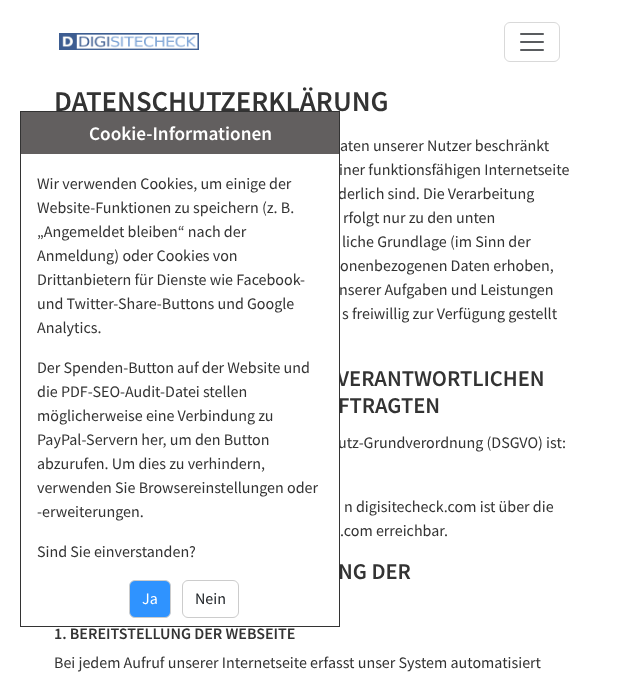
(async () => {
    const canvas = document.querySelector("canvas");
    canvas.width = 624;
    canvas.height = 687;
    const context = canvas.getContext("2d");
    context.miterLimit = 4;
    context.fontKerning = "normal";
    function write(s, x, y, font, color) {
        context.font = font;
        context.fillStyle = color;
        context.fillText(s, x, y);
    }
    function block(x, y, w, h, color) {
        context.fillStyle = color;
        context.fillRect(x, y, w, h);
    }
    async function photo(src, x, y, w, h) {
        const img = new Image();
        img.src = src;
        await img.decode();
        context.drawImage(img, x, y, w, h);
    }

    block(0, 0, 624, 687, "rgb(255, 255, 255)");
    await photo("media/1.png", 59, 33, 140, 17);
    context.beginPath();
    context.roundRect(504.5, 22.5, 55, 39, 5.5);
    context.strokeStyle = "rgb(217, 217, 217)";
    context.stroke();
    await photo("media/2.png", 520, 33, 24, 18);
    write("DATENSCHUTZERKLÄRUNG", 54, 111, "600 28.75px Source Sans Pro", "rgb(51, 51, 51)");
    write("aten unserer Nutzer beschränkt", 340, 151, "16px Source Sans Pro", "rgb(51, 51, 51)");
    write("iner funktionsfähigen Internetseite", 339, 175, "16px Source Sans Pro", "rgb(51, 51, 51)");
    write("derlich sind. Die Verarbeitung", 338, 199, "16px Source Sans Pro", "rgb(51, 51, 51)");
    write("rfolgt nur zu den unten", 343, 223, "16px Source Sans Pro", "rgb(51, 51, 51)");
    write("liche Grundlage (im Sinn der", 342, 247, "16px Source Sans Pro", "rgb(51, 51, 51)");
    write("onenbezogenen Daten erhoben,", 340, 271, "16px Source Sans Pro", "rgb(51, 51, 51)");
    write("nserer Aufgaben und Leistungen", 339, 295, "16px Source Sans Pro", "rgb(51, 51, 51)");
    write("s freiwillig zur Verfügung gestellt", 342, 319, "16px Source Sans Pro", "rgb(51, 51, 51)");
    write("VERANTWORTLICHEN", 337, 386, "600 22.5px Source Sans Pro", "rgb(51, 51, 51)");
    write("FTRAGTEN", 338, 413, "600 22.5px Source Sans Pro", "rgb(51, 51, 51)");
    write("utz-Grundverordnung (DSGVO) ist:", 338, 448, "16px Source Sans Pro", "rgb(51, 51, 51)");
    write("n digisitecheck.com ist über die", 344, 512, "16px Source Sans Pro", "rgb(51, 51, 51)");
    write(".com erreichbar.", 340, 536, "16px Source Sans Pro", "rgb(51, 51, 51)");
    write("NG DER", 338, 579, "600 22.5px Source Sans Pro", "rgb(51, 51, 51)");
    write("1. BEREITSTELLUNG DER WEBSEITE", 54, 639, "600 16px Source Sans Pro", "rgb(51, 51, 51)");
    write("Bei jedem Aufruf unserer Internetseite erfasst unser System automatisiert", 54, 668, "16px Source Sans Pro", "rgb(51, 51, 51)");
    block(336, 194, 3, 253, "rgb(255, 255, 255)");
    context.strokeStyle = "rgb(51, 51, 51)";
    context.strokeRect(20.5, 111.5, 319, 515);
    block(21, 112, 318, 42, "rgb(98, 95, 95)");
    write("Cookie-Informationen", 89, 140, "600 19.25px Source Sans Pro", "rgb(255, 255, 255)");
    write("Wir verwenden Cookies, um einige der", 37, 189, "16px Source Sans Pro", "rgb(51, 51, 51)");
    write("Website-Funktionen zu speichern (z. B.", 37, 213, "16px Source Sans Pro", "rgb(51, 51, 51)");
    write("„Angemeldet bleiben“ nach der", 37, 237, "16px Source Sans Pro", "rgb(51, 51, 51)");
    write("Anmeldung) oder Cookies von", 37, 261, "16px Source Sans Pro", "rgb(51, 51, 51)");
    write("Drittanbietern für Dienste wie Facebook-", 37, 285, "16px Source Sans Pro", "rgb(51, 51, 51)");
    write("und Twitter-Share-Buttons und Google", 37, 309, "16px Source Sans Pro", "rgb(51, 51, 51)");
    write("Analytics.", 37, 333, "16px Source Sans Pro", "rgb(51, 51, 51)");
    write("Der Spenden-Button auf der Website und", 37, 373, "16px Source Sans Pro", "rgb(51, 51, 51)");
    write("die PDF-SEO-Audit-Datei stellen", 37, 397, "16px Source Sans Pro", "rgb(51, 51, 51)");
    write("möglicherweise eine Verbindung zu", 37, 421, "16px Source Sans Pro", "rgb(51, 51, 51)");
    write("PayPal-Servern her, um den Button", 37, 445, "16px Source Sans Pro", "rgb(51, 51, 51)");
    write("abzurufen. Um dies zu verhindern,", 37, 469, "16px Source Sans Pro", "rgb(51, 51, 51)");
    write("verwenden Sie Browsereinstellungen oder", 37, 493, "16px Source Sans Pro", "rgb(51, 51, 51)");
    write("-erweiterungen.", 37, 517, "16px Source Sans Pro", "rgb(51, 51, 51)");
    write("Sind Sie einverstanden?", 37, 557, "16px Source Sans Pro", "rgb(51, 51, 51)");
    context.fillStyle = "rgb(47, 147, 255)";
    context.beginPath();
    context.roundRect(129.5, 580.5, 41, 37, 5.5);
    context.fill();
    context.strokeStyle = "rgb(204, 204, 204)";
    context.stroke();
    write("Ja", 142, 604, "16px Source Sans Pro", "rgb(255, 255, 255)");
    context.beginPath();
    context.roundRect(182.5, 580.5, 56, 37, 5.5);
    context.stroke();
    write("Nein", 195, 604, "16px Source Sans Pro", "rgb(33, 37, 41)");
})();
